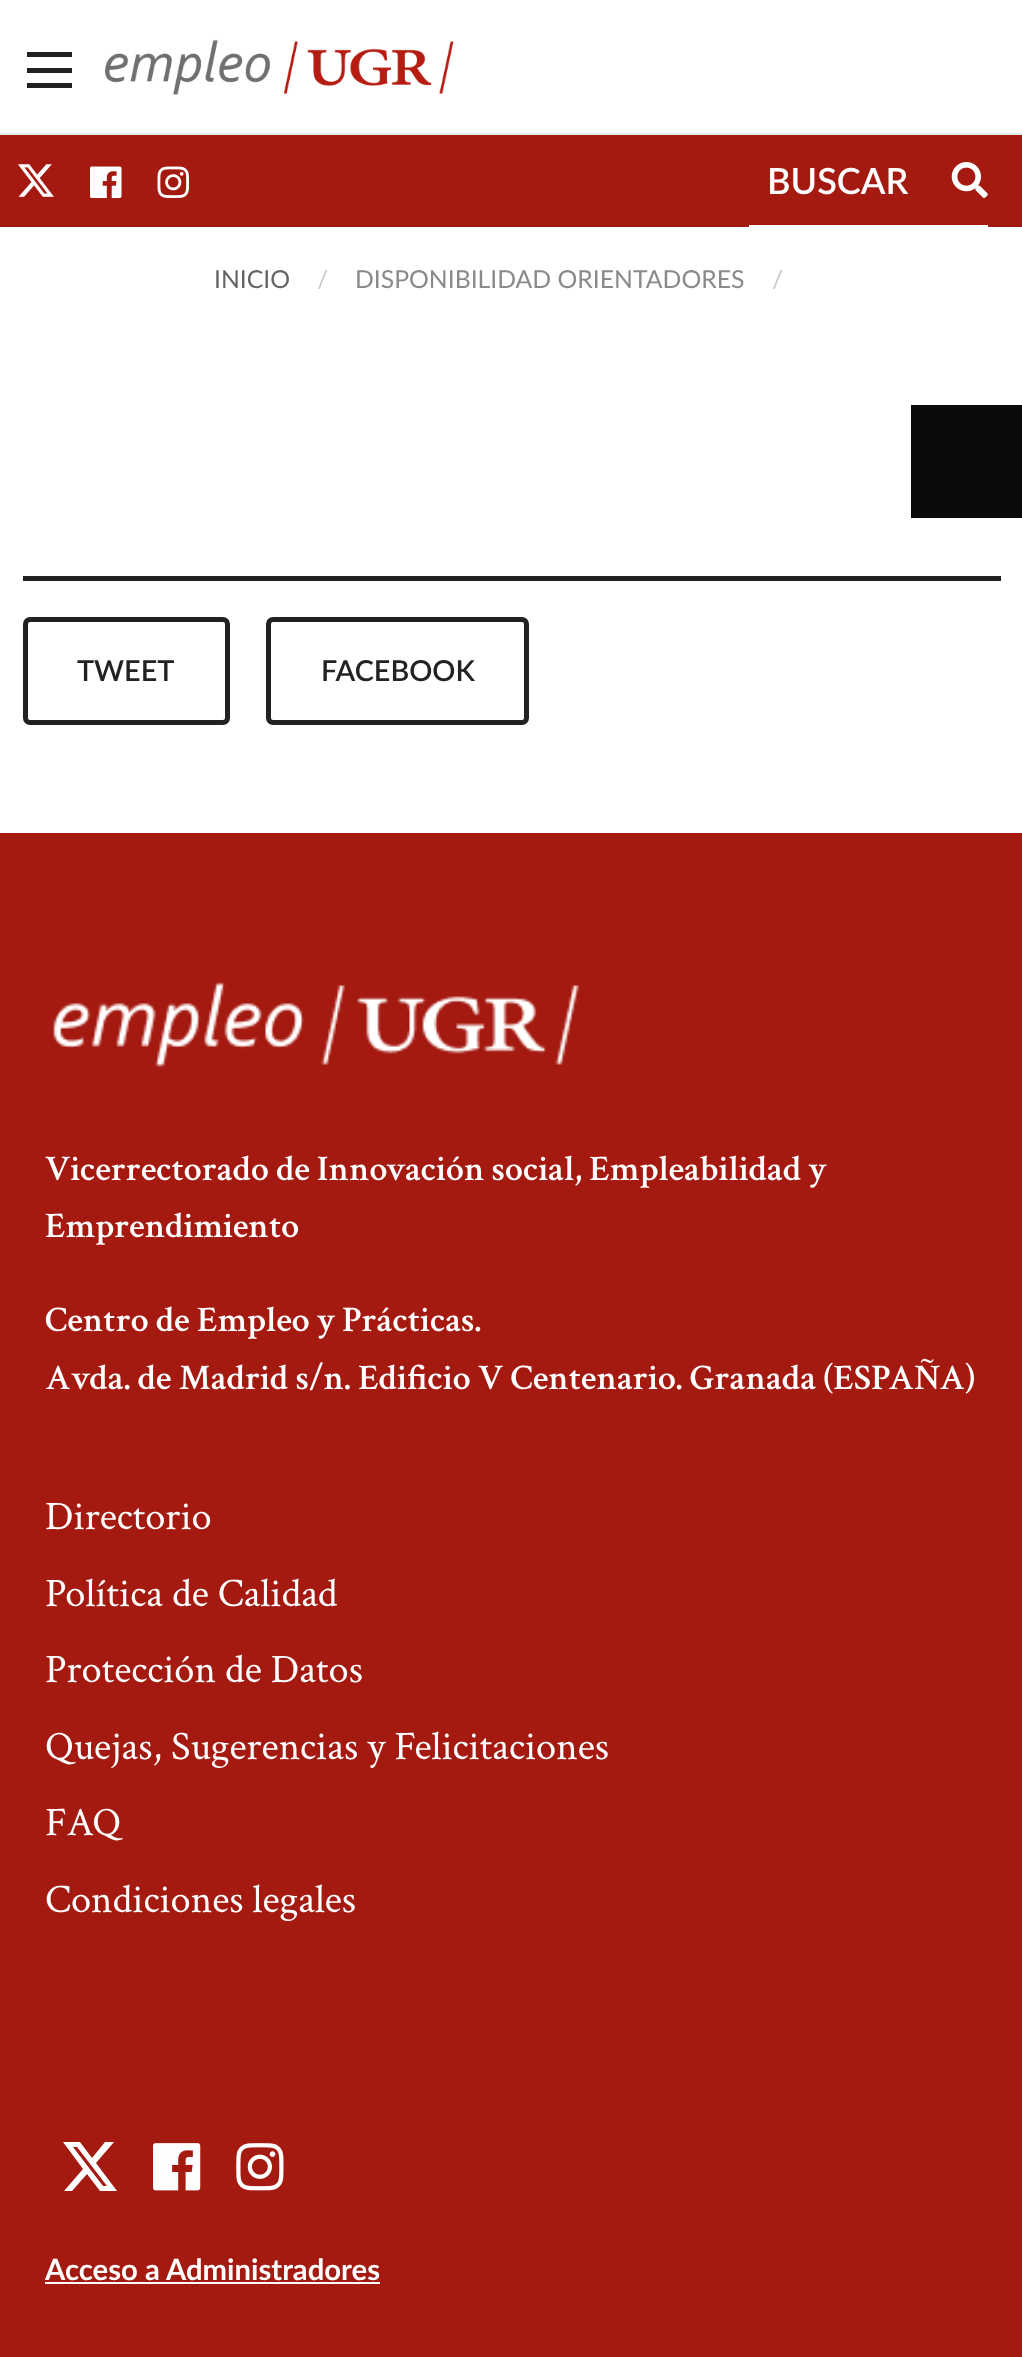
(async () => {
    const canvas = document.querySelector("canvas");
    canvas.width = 1022;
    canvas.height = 2357;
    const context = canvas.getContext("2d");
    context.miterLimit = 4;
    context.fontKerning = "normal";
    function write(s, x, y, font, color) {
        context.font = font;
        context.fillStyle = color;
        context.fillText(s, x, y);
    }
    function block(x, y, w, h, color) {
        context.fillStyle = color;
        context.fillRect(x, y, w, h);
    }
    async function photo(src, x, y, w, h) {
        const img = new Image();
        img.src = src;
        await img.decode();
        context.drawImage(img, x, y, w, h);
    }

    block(0, 0, 1022, 2357, "rgb(255, 255, 255)");
    block(27, 83, 45, 5, "rgb(33, 33, 33)");
    block(27, 68, 45, 5, "rgb(33, 33, 33)");
    block(27, 52, 45, 5, "rgb(33, 33, 33)");
    await photo("media/1.png", 105, 39, 349, 56);
    block(0, 133, 1022, 2, "rgb(234, 234, 234)");
    block(0, 135, 1022, 92, "rgb(164, 25, 16)");
    await photo("media/2.png", 18, 164, 36, 33);
    await photo("media/3.png", 90, 166, 32, 32);
    await photo("media/4.png", 157, 166, 32, 32);
    block(749, 225, 239, 2, "rgb(255, 255, 255)");
    write("BUSCAR", 767, 194, "600 36px Lato", "rgb(254, 254, 254)");
    await photo("media/5.png", 951, 162, 37, 36);
    write("INICIO", 214, 288, "24.75px Lato", "rgb(102, 102, 102)");
    write("/", 317, 288, "24.75px Lato", "rgb(202, 202, 202)");
    write("DISPONIBILIDAD ORIENTADORES", 355, 288, "24.75px Lato", "rgb(138, 138, 138)");
    write("/", 772, 288, "24.75px Lato", "rgb(202, 202, 202)");
    block(911, 405, 111, 113, "rgb(10, 10, 10)");
    block(23, 576, 978, 5, "rgb(34, 34, 34)");
    context.beginPath();
    context.roundRect(25.5, 619.5, 202, 103, 4.5);
    context.strokeStyle = "rgb(34, 34, 34)";
    context.lineWidth = 5;
    context.stroke();
    write("TWEET", 77, 681, "600 28.75px Lato", "rgb(34, 34, 34)");
    context.beginPath();
    context.roundRect(268.5, 619.5, 258, 103, 4.5);
    context.stroke();
    write("FACEBOOK", 321, 681, "600 28.75px Lato", "rgb(34, 34, 34)");
    block(0, 833, 1022, 1524, "rgb(164, 25, 16)");
    await photo("media/6.png", 53, 982, 526, 86);
    write("Vicerrectorado de Innovación social, Empleabilidad y", 45, 1180, "600 36px Crimson Text", "rgb(254, 254, 254)");
    write("Emprendimiento", 45, 1237, "600 36px Crimson Text", "rgb(254, 254, 254)");
    write("Centro de Empleo y Prácticas.", 45, 1331, "600 36px Crimson Text", "rgb(254, 254, 254)");
    write("Avda. de Madrid s/n. Edificio V Centenario. Granada (ESPAÑA)", 45, 1389, "600 36px Crimson Text", "rgb(254, 254, 254)");
    write("Directorio", 45, 1529, "40.5px Crimson Text", "rgb(254, 254, 254)");
    write("Política de Calidad", 45, 1606, "40.5px Crimson Text", "rgb(254, 254, 254)");
    write("Protección de Datos", 45, 1682, "40.5px Crimson Text", "rgb(254, 254, 254)");
    write("Quejas, Sugerencias y Felicitaciones", 45, 1759, "40.5px Crimson Text", "rgb(254, 254, 254)");
    write("FAQ", 45, 1835, "40.5px Crimson Text", "rgb(254, 254, 254)");
    write("Condiciones legales", 45, 1912, "40.5px Crimson Text", "rgb(254, 254, 254)");
    context.fillStyle = "rgb(255, 255, 255)";
    context.beginPath();
    context.moveTo(105, 2142);
    context.lineTo(114, 2142);
    context.lineTo(96, 2163);
    context.lineTo(117, 2191);
    context.lineTo(100, 2191);
    context.lineTo(87, 2174);
    context.lineTo(72, 2191);
    context.lineTo(64, 2191);
    context.lineTo(83, 2169);
    context.lineTo(63, 2142);
    context.lineTo(80, 2142);
    context.lineTo(92, 2158);
    context.closePath();
    context.moveTo(103, 2186);
    context.lineTo(107, 2186);
    context.lineTo(77, 2147);
    context.lineTo(73, 2147);
    context.closePath();
    context.fill();
    await photo("media/7.png", 153, 2143, 48, 48);
    await photo("media/8.png", 236, 2143, 48, 48);
    write("Acceso a Administradores", 45, 2280, "bold 29.25px Lato", "rgb(254, 254, 254)");
    block(45, 2282, 335, 2, "rgb(255, 255, 255)");
})();
